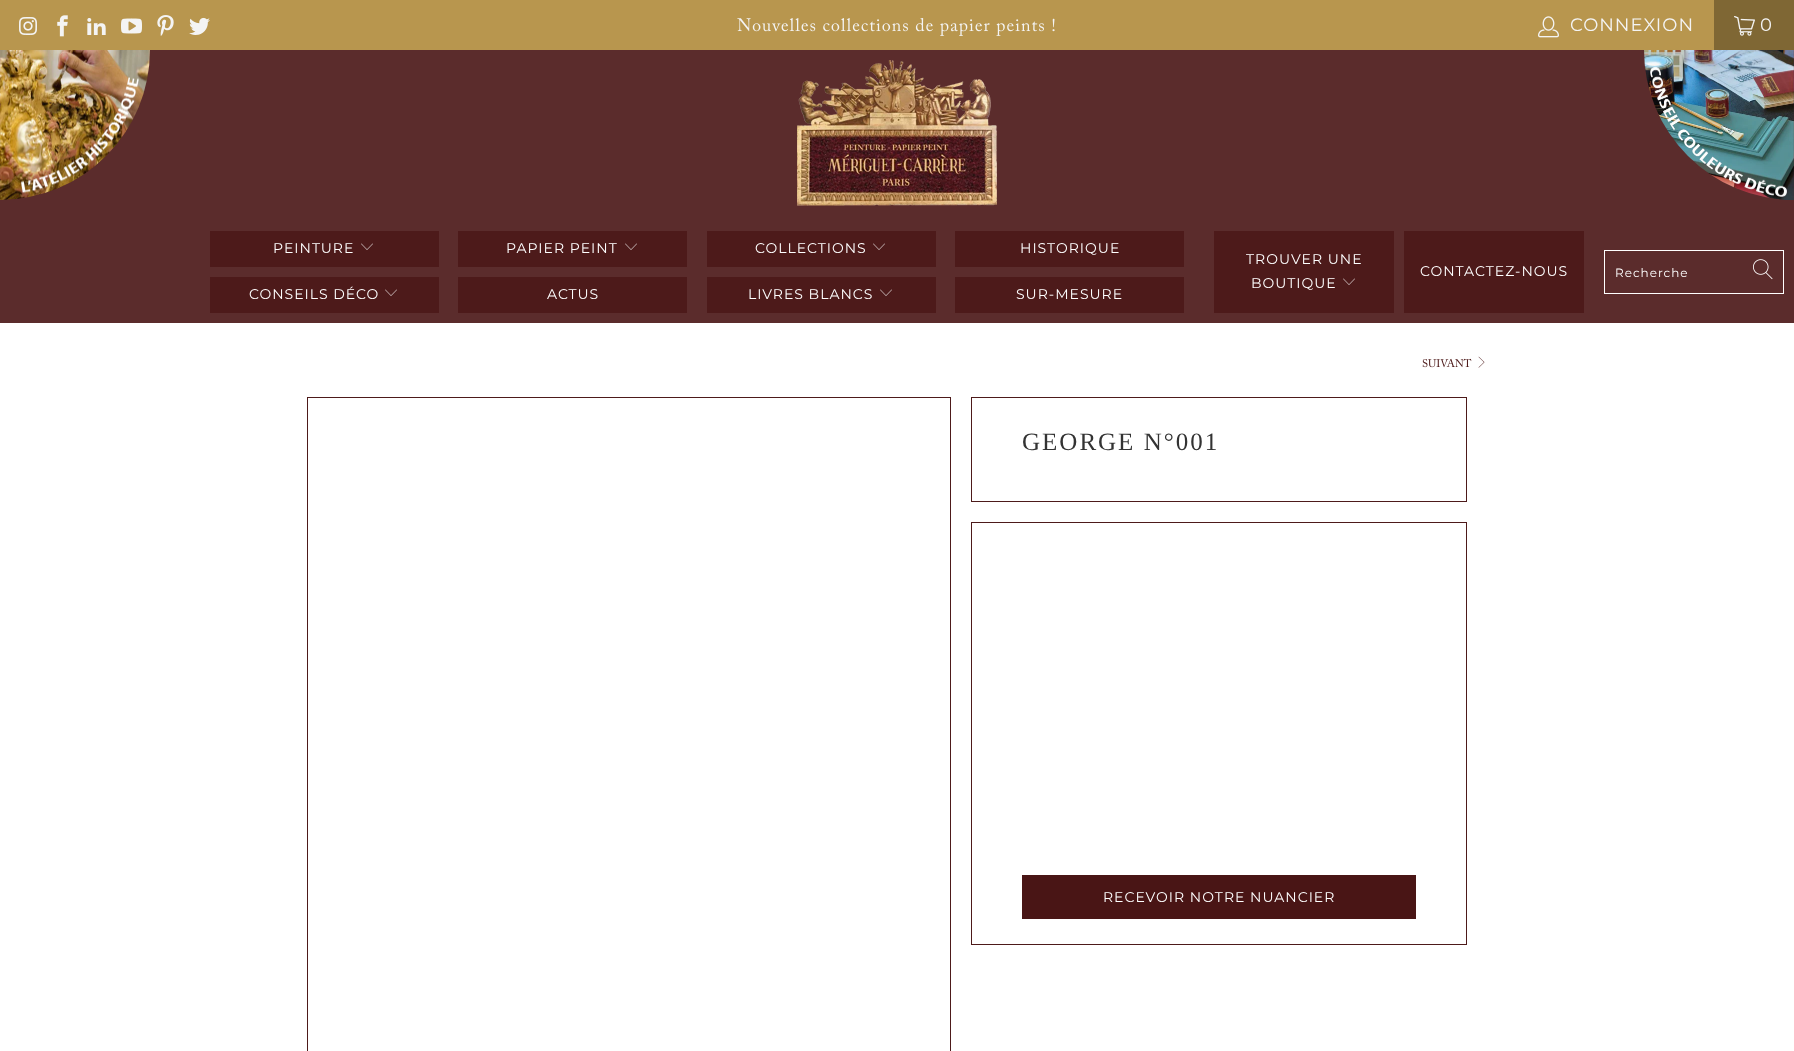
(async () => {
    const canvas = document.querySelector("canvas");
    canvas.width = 1794;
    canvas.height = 1051;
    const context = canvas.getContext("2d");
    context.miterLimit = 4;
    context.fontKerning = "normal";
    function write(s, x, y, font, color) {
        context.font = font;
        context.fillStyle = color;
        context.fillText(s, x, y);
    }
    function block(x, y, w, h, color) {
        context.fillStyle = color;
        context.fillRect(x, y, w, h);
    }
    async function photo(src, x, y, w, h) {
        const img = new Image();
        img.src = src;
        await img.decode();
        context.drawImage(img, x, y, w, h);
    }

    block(0, 0, 1794, 1051, "rgb(255, 255, 255)");
    block(0, 0, 1714, 50, "rgb(184, 150, 78)");
    await photo("media/1.png", 19, 17, 18, 18);
    await photo("media/2.png", 57, 15, 11, 22);
    await photo("media/3.png", 87, 18, 19, 17);
    await photo("media/4.png", 121, 18, 21, 16);
    await photo("media/5.png", 157, 15, 17, 21);
    await photo("media/6.png", 189, 17, 21, 18);
    await photo("media/7.png", 737, 18, 318, 18);
    await photo("media/8.png", 1538, 16, 21, 22);
    context.letterSpacing = "1px";
    write("CONNEXION", 1570, 31, "18px Montserrat", "rgb(244, 244, 244)");
    block(1714, 0, 80, 50, "rgb(127, 103, 52)");
    await photo("media/9.png", 1734, 16, 21, 20);
    write("0", 1760, 31, "18px Montserrat", "rgb(244, 244, 244)");
    block(0, 50, 1794, 273, "rgb(91, 44, 44)");
    await photo("media/10.png", 0, 50, 150, 150);
    await photo("media/11.png", 797, 60, 200, 146);
    await photo("media/12.png", 1644, 50, 150, 150);
    block(210, 231, 229, 36, "rgb(77, 26, 26)");
    write("PEINTURE", 273, 253, "14px Montserrat", "rgb(255, 255, 255)");
    await photo("media/13.png", 361, 243, 12, 7);
    block(458, 231, 229, 36, "rgb(77, 26, 26)");
    write("PAPIER PEINT", 506, 253, "14px Montserrat", "rgb(255, 255, 255)");
    await photo("media/13.png", 625, 243, 12, 7);
    block(707, 231, 229, 36, "rgb(77, 26, 26)");
    write("COLLECTIONS", 755, 253, "14px Montserrat", "rgb(255, 255, 255)");
    await photo("media/13.png", 873, 243, 12, 7);
    block(955, 231, 229, 36, "rgb(77, 26, 26)");
    write("HISTORIQUE", 1020, 253, "14px Montserrat", "rgb(255, 255, 255)");
    block(210, 277, 229, 36, "rgb(77, 26, 26)");
    write("CONSEILS DÉCO", 249, 299, "14px Montserrat", "rgb(255, 255, 255)");
    await photo("media/13.png", 385, 289, 12, 7);
    block(458, 277, 229, 36, "rgb(77, 26, 26)");
    write("ACTUS", 547, 299, "14px Montserrat", "rgb(255, 255, 255)");
    block(707, 277, 229, 36, "rgb(77, 26, 26)");
    write("LIVRES BLANCS", 748, 299, "14px Montserrat", "rgb(255, 255, 255)");
    await photo("media/13.png", 880, 289, 12, 7);
    block(955, 277, 229, 36, "rgb(77, 26, 26)");
    write("SUR-MESURE", 1016, 299, "14px Montserrat", "rgb(255, 255, 255)");
    block(1214, 231, 180, 82, "rgb(77, 26, 26)");
    write("TROUVER UNE", 1246, 264, "14px Montserrat", "rgb(255, 255, 255)");
    write("BOUTIQUE", 1251, 288, "14px Montserrat", "rgb(255, 255, 255)");
    await photo("media/13.png", 1343, 278, 12, 7);
    block(1404, 231, 180, 82, "rgb(77, 26, 26)");
    write("CONTACTEZ-NOUS", 1420, 276, "14px Montserrat", "rgb(255, 255, 255)");
    context.strokeStyle = "rgb(255, 255, 255)";
    context.strokeRect(1604.5, 250.5, 179, 43);
    write("Recherche", 1615, 277, "12px Montserrat", "rgb(255, 255, 255)");
    await photo("media/14.png", 1753, 259, 20, 21);
    await photo("media/15.png", 1422, 358, 50, 10);
    await photo("media/16.png", 1478, 356, 7, 12);
    context.strokeStyle = "rgb(77, 26, 26)";
    context.strokeRect(307.5, 397.5, 643, 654);
    context.strokeRect(971.5, 397.5, 495, 104);
    context.letterSpacing = "2px";
    write("GEORGE N°001", 1022, 450, "25px Liberation Serif", "rgb(51, 51, 51)");
    context.strokeRect(971.5, 522.5, 495, 422);
    block(1022, 875, 394, 44, "rgb(73, 21, 21)");
    context.letterSpacing = "1px";
    write("RECEVOIR NOTRE NUANCIER", 1103, 902, "14px Montserrat", "rgb(255, 255, 255)");
})();
